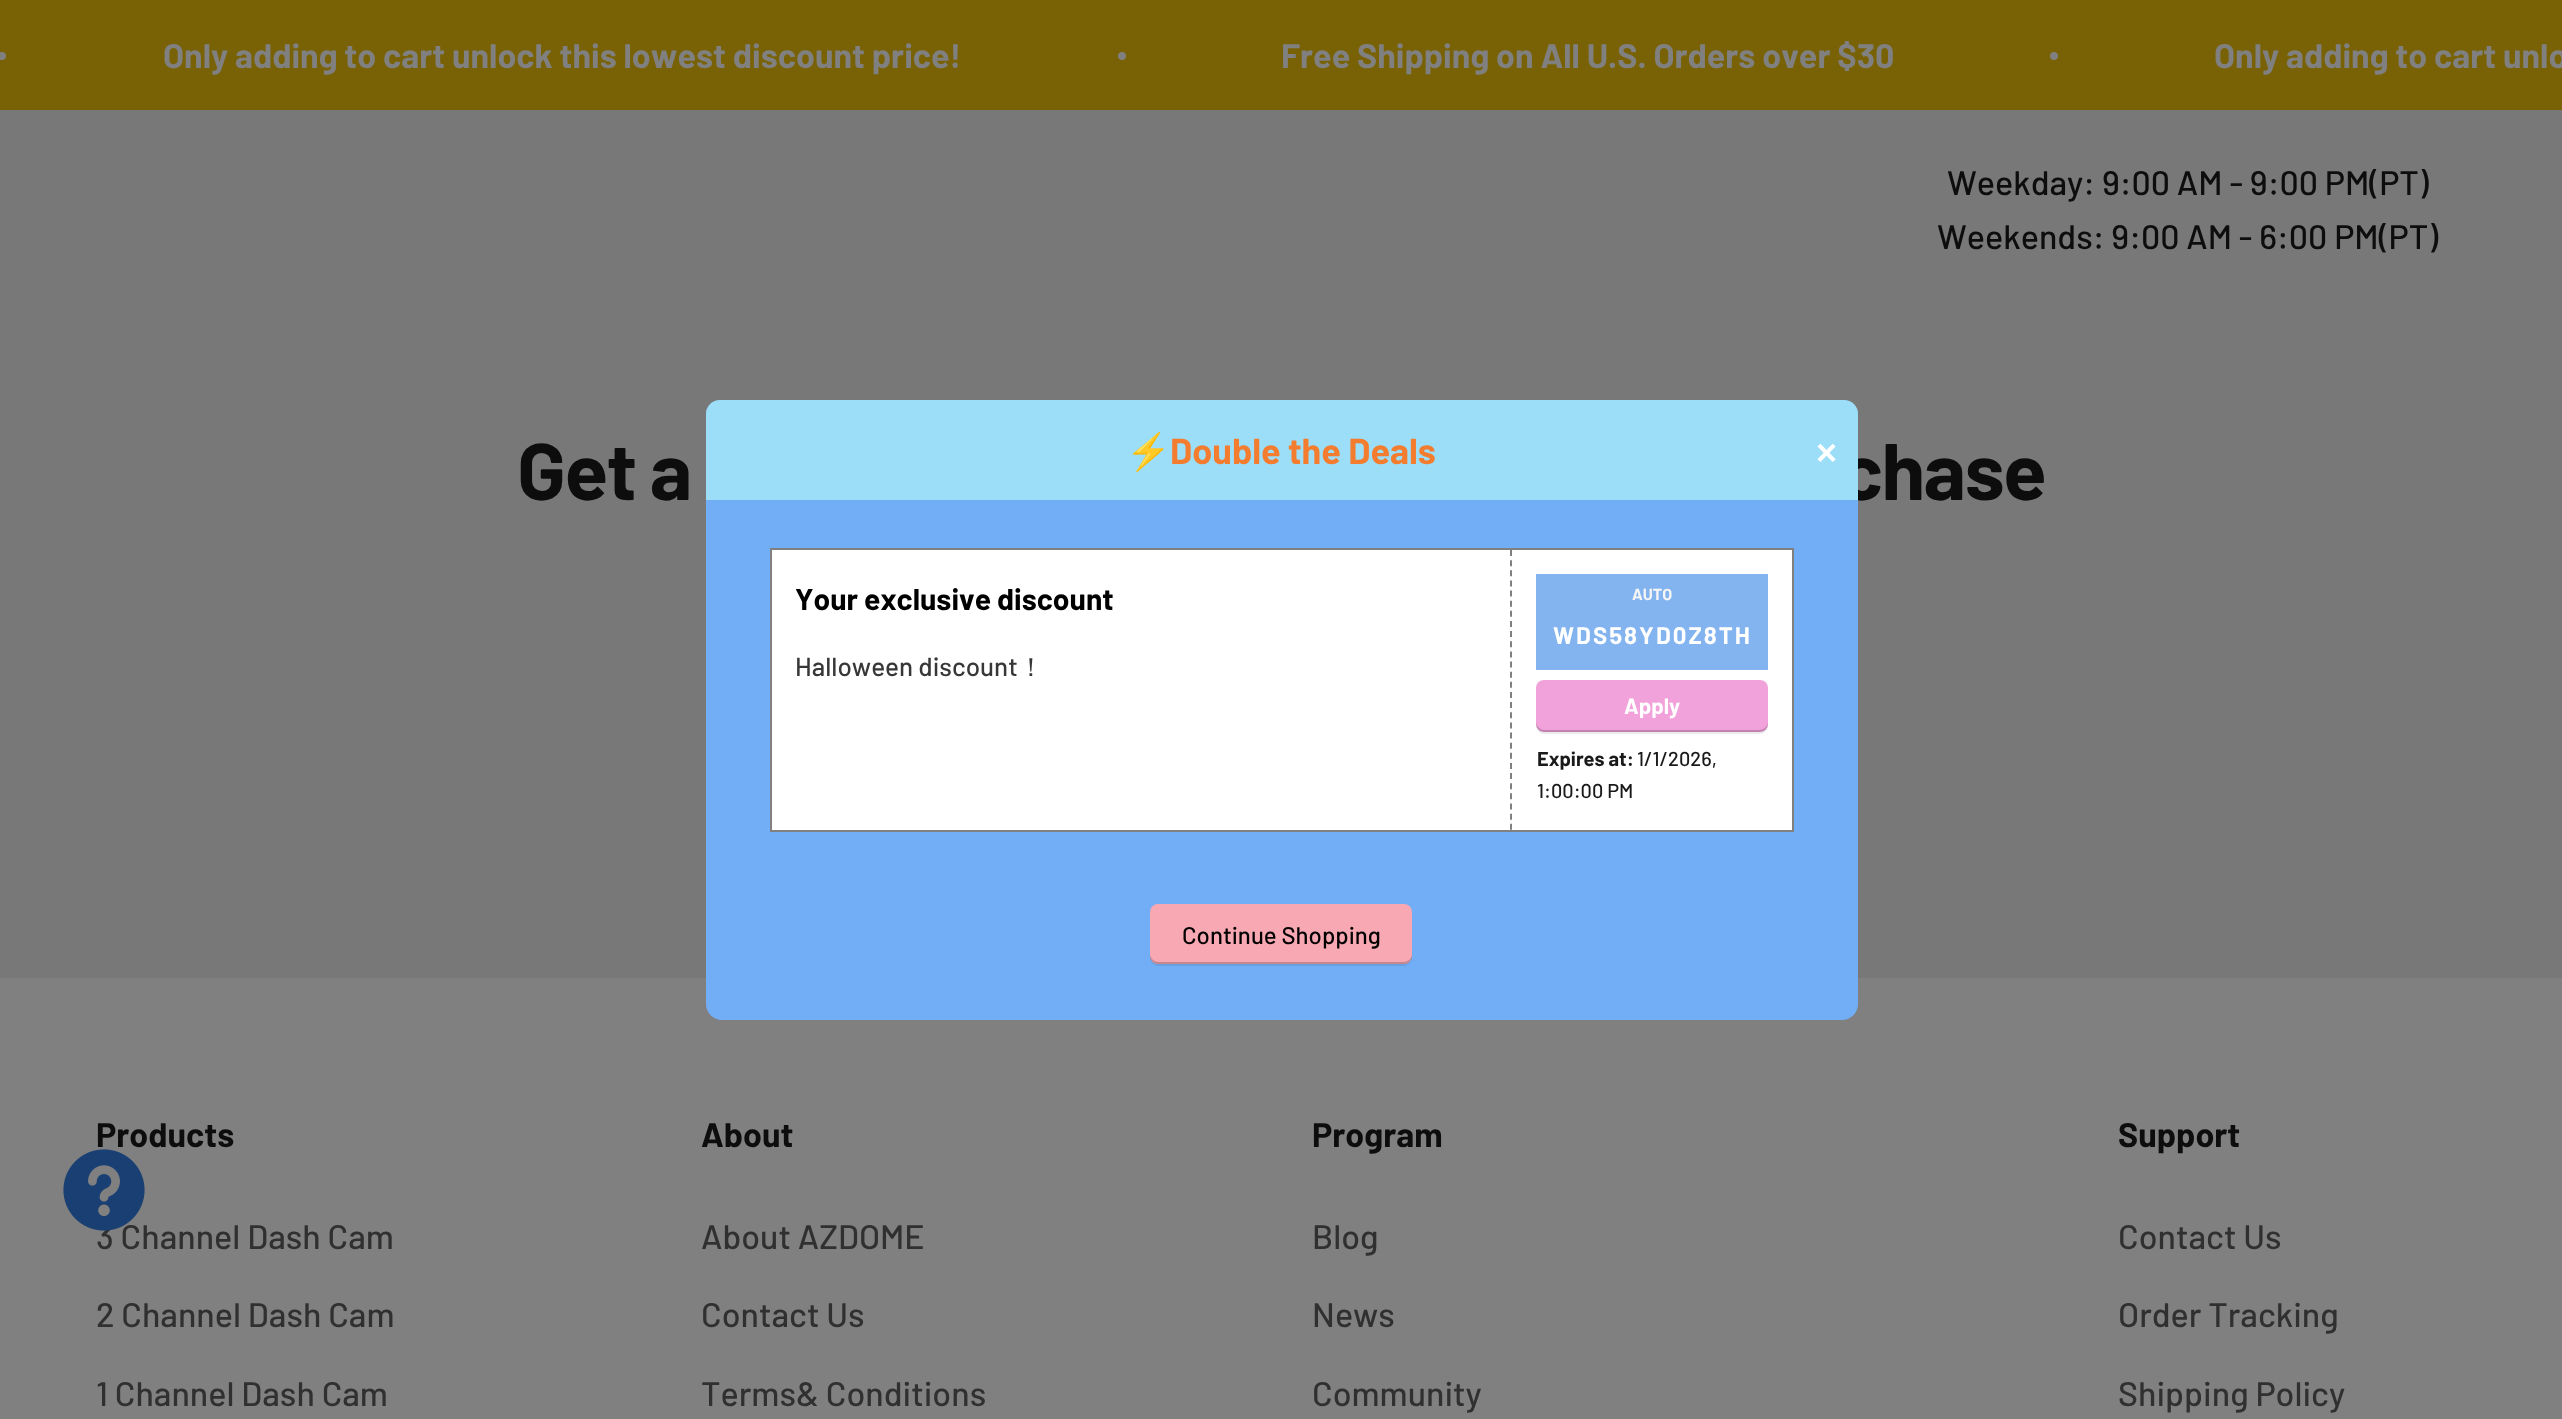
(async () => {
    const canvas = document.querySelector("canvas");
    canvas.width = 2562;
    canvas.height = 1419;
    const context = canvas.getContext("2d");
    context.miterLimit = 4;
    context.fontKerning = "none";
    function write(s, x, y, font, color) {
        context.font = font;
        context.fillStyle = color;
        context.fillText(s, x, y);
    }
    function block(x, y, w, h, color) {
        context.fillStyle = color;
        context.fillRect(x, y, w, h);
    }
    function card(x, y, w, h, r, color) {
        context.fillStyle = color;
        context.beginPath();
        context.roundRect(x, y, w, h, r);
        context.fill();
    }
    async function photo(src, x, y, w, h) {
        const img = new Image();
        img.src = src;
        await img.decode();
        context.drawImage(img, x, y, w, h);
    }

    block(0, 0, 2562, 1419, "rgb(120, 120, 120)");
    block(0, 0, 2562, 110, "rgb(121, 98, 5)");
    context.fillStyle = "rgb(128, 128, 128)";
    context.beginPath();
    context.arc(2, 56, 4, 0, Math.PI * 2);
    context.fill();
    write("Only adding to cart unlock this lowest discount price!", 163, 68, "bold 34px Barlow", "rgb(128, 128, 128)");
    context.beginPath();
    context.arc(1122, 56, 4, 0, Math.PI * 2);
    context.fill();
    write("Free Shipping on All U.S. Orders over $30", 1281, 68, "bold 34px Barlow", "rgb(128, 128, 128)");
    context.beginPath();
    context.arc(2054, 56, 4, 0, Math.PI * 2);
    context.fill();
    write("Only adding to cart unlo", 2214, 68, "bold 34px Barlow", "rgb(128, 128, 128)");
    write("Weekday: 9:00 AM - 9:00 PM(PT)", 1947, 195, "500 34px Barlow", "rgb(13, 13, 13)");
    write("Weekends: 9:00 AM - 6:00 PM(PT)", 1937, 249, "500 34px Barlow", "rgb(13, 13, 13)");
    context.letterSpacing = "-1.5px";
    write("Get a", 517, 500, "bold 80px Barlow", "rgb(13, 13, 13)");
    write("chase", 1840, 500, "bold 80px Barlow", "rgb(13, 13, 13)");
    block(0, 978, 2562, 441, "rgb(128, 128, 128)");
    context.letterSpacing = "0px";
    write("Products", 96, 1147, "bold 34px Barlow", "rgb(13, 13, 13)");
    write("3 Channel Dash Cam", 96, 1249, "500 34px Barlow", "rgb(48, 48, 48)");
    write("2 Channel Dash Cam", 96, 1327, "500 34px Barlow", "rgb(48, 48, 48)");
    write("1 Channel Dash Cam", 96, 1406, "500 34px Barlow", "rgb(48, 48, 48)");
    write("About", 701, 1147, "bold 34px Barlow", "rgb(13, 13, 13)");
    write("About AZDOME", 701, 1249, "500 34px Barlow", "rgb(48, 48, 48)");
    write("Contact Us", 701, 1327, "500 34px Barlow", "rgb(48, 48, 48)");
    write("Terms& Conditions", 701, 1406, "500 34px Barlow", "rgb(48, 48, 48)");
    write("Program", 1312, 1147, "bold 34px Barlow", "rgb(13, 13, 13)");
    write("Blog", 1312, 1249, "500 34px Barlow", "rgb(48, 48, 48)");
    write("News", 1312, 1327, "500 34px Barlow", "rgb(48, 48, 48)");
    write("Community", 1312, 1406, "500 34px Barlow", "rgb(48, 48, 48)");
    write("Support", 2118, 1147, "bold 34px Barlow", "rgb(13, 13, 13)");
    write("Contact Us", 2118, 1249, "500 34px Barlow", "rgb(48, 48, 48)");
    write("Order Tracking", 2118, 1327, "500 34px Barlow", "rgb(48, 48, 48)");
    write("Shipping Policy", 2118, 1406, "500 34px Barlow", "rgb(48, 48, 48)");
    card(706, 400, 1152, 620, 16, "rgb(113, 174, 246)");
    context.fillStyle = "rgb(156, 222, 248)";
    context.beginPath();
    context.roundRect(706, 400, 1152, 100, [14, 14, 0, 0]);
    context.fill();
    write("⚡", 1126, 464, "bold 36px Noto Color Emoji", "rgb(244, 124, 47)");
    write("Double the Deals", 1170, 464, "bold 36px Barlow", "rgb(244, 124, 47)");
    write("×", 1816, 466, "500 40px Roboto", "rgb(255, 255, 255)");
    context.beginPath();
    context.rect(771, 549, 1022, 282);
    context.fill();
    context.strokeStyle = "rgb(128, 128, 128)";
    context.lineWidth = 2;
    context.stroke();
    context.beginPath();
    context.moveTo(1511, 550);
    context.lineTo(1511, 830);
    context.setLineDash([6, 4.14]);
    context.stroke();
    write("Your exclusive discount", 795, 610, "bold 30px Barlow", "rgb(0, 0, 0)");
    write("Halloween discount", 795, 676, "500 26px Barlow", "rgb(55, 55, 56)");
    write("！", 1018, 676, "500 26px WenQuanYi Zen Hei", "rgb(55, 55, 56)");
    block(1536, 574, 232, 96, "rgb(131, 180, 240)");
    write("AUTO", 1632, 600, "bold 16px Barlow", "rgb(245, 245, 245)");
    context.letterSpacing = "2px";
    write("WDS58YD0Z8TH", 1553, 644, "bold 24px Barlow", "rgb(255, 255, 255)");
    context.fillStyle = "rgb(235, 235, 235)";
    context.beginPath();
    context.moveTo(1536, 724);
    context.lineTo(1536, 726);
    context.bezierCurveTo(1536, 730, 1540, 734, 1544, 734);
    context.lineTo(1760, 734);
    context.bezierCurveTo(1764, 734, 1768, 730, 1768, 726);
    context.lineTo(1768, 724);
    context.bezierCurveTo(1768, 728, 1764, 732, 1760, 732);
    context.lineTo(1544, 732);
    context.bezierCurveTo(1540, 732, 1536, 728, 1536, 724);
    context.closePath();
    context.fill();
    card(1536, 680, 232, 52, 8, "rgb(242, 162, 219)");
    context.fillStyle = "rgba(0, 0, 0, 0.2)";
    context.beginPath();
    context.moveTo(1536, 722);
    context.lineTo(1536, 724);
    context.bezierCurveTo(1536, 728, 1540, 732, 1544, 732);
    context.lineTo(1760, 732);
    context.bezierCurveTo(1764, 732, 1768, 728, 1768, 724);
    context.lineTo(1768, 722);
    context.bezierCurveTo(1768, 726, 1764, 730, 1760, 730);
    context.lineTo(1544, 730);
    context.bezierCurveTo(1540, 730, 1536, 726, 1536, 722);
    context.closePath();
    context.fill();
    context.letterSpacing = "0px";
    write("Apply", 1624, 714, "bold 22px Barlow", "rgb(255, 255, 255)");
    write("Expires at:", 1537, 766, "bold 20px Barlow", "rgb(26, 26, 26)");
    write("1/1/2026,", 1637, 766, "500 20px Barlow", "rgb(26, 26, 26)");
    write("1:00:00 PM", 1537, 798, "500 20px Barlow", "rgb(26, 26, 26)");
    context.fillStyle = "rgb(104, 160, 226)";
    context.beginPath();
    context.moveTo(1150, 956);
    context.lineTo(1150, 958);
    context.bezierCurveTo(1150, 962, 1154, 966, 1158, 966);
    context.lineTo(1404, 966);
    context.bezierCurveTo(1408, 966, 1412, 962, 1412, 958);
    context.lineTo(1412, 956);
    context.bezierCurveTo(1412, 960, 1408, 964, 1404, 964);
    context.lineTo(1158, 964);
    context.bezierCurveTo(1154, 964, 1150, 960, 1150, 956);
    context.closePath();
    context.fill();
    card(1150, 904, 262, 60, 8, "rgb(247, 168, 178)");
    context.fillStyle = "rgba(0, 0, 0, 0.2)";
    context.beginPath();
    context.moveTo(1150, 954);
    context.lineTo(1150, 956);
    context.bezierCurveTo(1150, 960, 1154, 964, 1158, 964);
    context.lineTo(1404, 964);
    context.bezierCurveTo(1408, 964, 1412, 960, 1412, 956);
    context.lineTo(1412, 954);
    context.bezierCurveTo(1412, 958, 1408, 962, 1404, 962);
    context.lineTo(1158, 962);
    context.bezierCurveTo(1154, 962, 1150, 958, 1150, 954);
    context.closePath();
    context.fill();
    write("Continue Shopping", 1182, 944, "500 24px Barlow", "rgb(0, 0, 0)");
    await photo("media/1.png", 63, 1149, 82, 82);
})();
